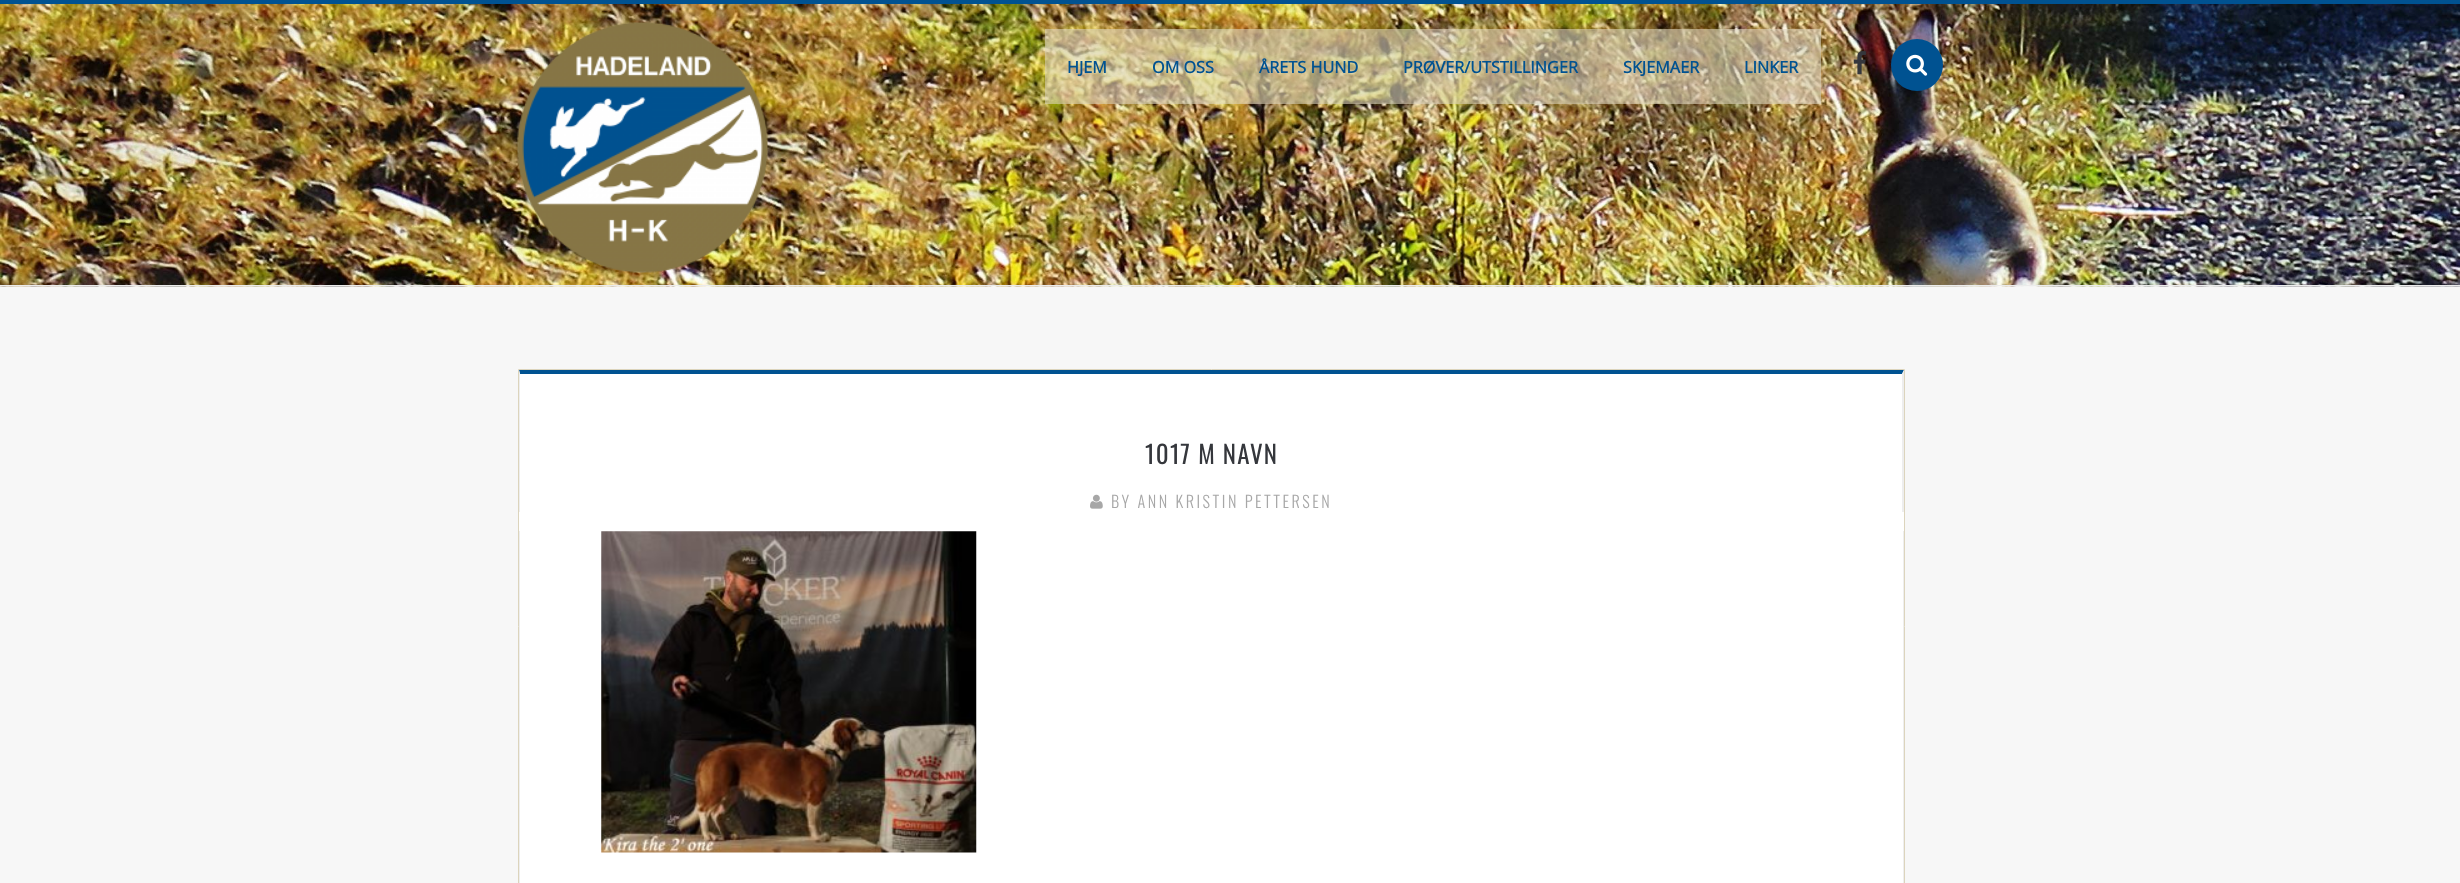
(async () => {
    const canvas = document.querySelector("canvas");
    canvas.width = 2460;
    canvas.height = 883;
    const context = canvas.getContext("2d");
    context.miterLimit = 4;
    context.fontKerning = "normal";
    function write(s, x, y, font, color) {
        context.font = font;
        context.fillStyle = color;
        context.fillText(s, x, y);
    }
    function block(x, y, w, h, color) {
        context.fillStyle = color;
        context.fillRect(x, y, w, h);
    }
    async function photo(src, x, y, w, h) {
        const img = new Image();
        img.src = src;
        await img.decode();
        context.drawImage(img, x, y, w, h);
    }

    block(0, 0, 2460, 883, "rgb(247, 247, 247)");
    await photo("media/1.png", 0, 4, 2460, 283);
    block(0, 0, 2460, 4, "rgb(0, 82, 145)");
    block(0, 285, 2460, 1, "rgb(235, 235, 235)");
    await photo("media/2.png", 517, 22, 251, 251);
    block(1045, 29, 85, 75, "rgba(220, 212, 188, 0.6)");
    write("HJEM", 1067, 73, "bold 16.25px Open Sans", "rgb(0, 82, 145)");
    block(1130, 29, 106, 75, "rgba(220, 212, 188, 0.6)");
    write("OM OSS", 1152, 73, "bold 16.25px Open Sans", "rgb(0, 82, 145)");
    block(1236, 29, 144, 75, "rgba(220, 212, 188, 0.6)");
    write("ÅRETS HUND", 1259, 73, "bold 16.25px Open Sans", "rgb(0, 82, 145)");
    block(1380, 29, 220, 75, "rgba(220, 212, 188, 0.6)");
    write("PRØVER/UTSTILLINGER", 1403, 73, "bold 16.25px Open Sans", "rgb(0, 82, 145)");
    block(1600, 29, 121, 75, "rgba(220, 212, 188, 0.6)");
    write("SKJEMAER", 1623, 73, "bold 16.25px Open Sans", "rgb(0, 82, 145)");
    block(1721, 29, 100, 75, "rgba(220, 212, 188, 0.6)");
    write("LINKER", 1744, 73, "bold 16.25px Open Sans", "rgb(0, 82, 145)");
    await photo("media/3.png", 1853, 51, 13, 24);
    context.beginPath();
    context.arc(1917, 65, 26, 0, Math.PI * 2);
    context.fill();
    await photo("media/4.png", 1906, 54, 22, 22);
    context.fillStyle = "rgb(255, 255, 255)";
    context.beginPath();
    context.rect(518.5, 369.5, 1386, 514);
    context.fill();
    context.strokeStyle = "rgb(220, 212, 188)";
    context.stroke();
    context.fillStyle = "rgb(0, 82, 145)";
    context.beginPath();
    context.moveTo(519, 370);
    context.lineTo(1904, 370);
    context.lineTo(1902, 374);
    context.lineTo(520, 374);
    context.closePath();
    context.fill();
    context.fillStyle = "rgb(238, 238, 238)";
    context.beginPath();
    context.moveTo(1904, 370);
    context.lineTo(1904, 512);
    context.lineTo(1902, 512);
    context.lineTo(1902, 374);
    context.closePath();
    context.fill();
    context.beginPath();
    context.moveTo(519, 512);
    context.lineTo(519, 370);
    context.lineTo(520, 374);
    context.lineTo(520, 512);
    context.closePath();
    context.fill();
    context.letterSpacing = "1.25px";
    write("1017 M NAVN", 1145, 464, "25px Oswald", "rgb(53, 55, 60)");
    await photo("media/5.png", 1090, 494, 13, 15);
    context.letterSpacing = "2.5px";
    write("BY ANN KRISTIN PETTERSEN", 1111, 508, "300 16.25px Oswald", "rgb(167, 167, 167)");
    block(1903, 531, 1, 352, "rgb(238, 238, 238)");
    block(519, 531, 1, 352, "rgb(238, 238, 238)");
    await photo("media/6.png", 601, 531, 376, 322);
})();
